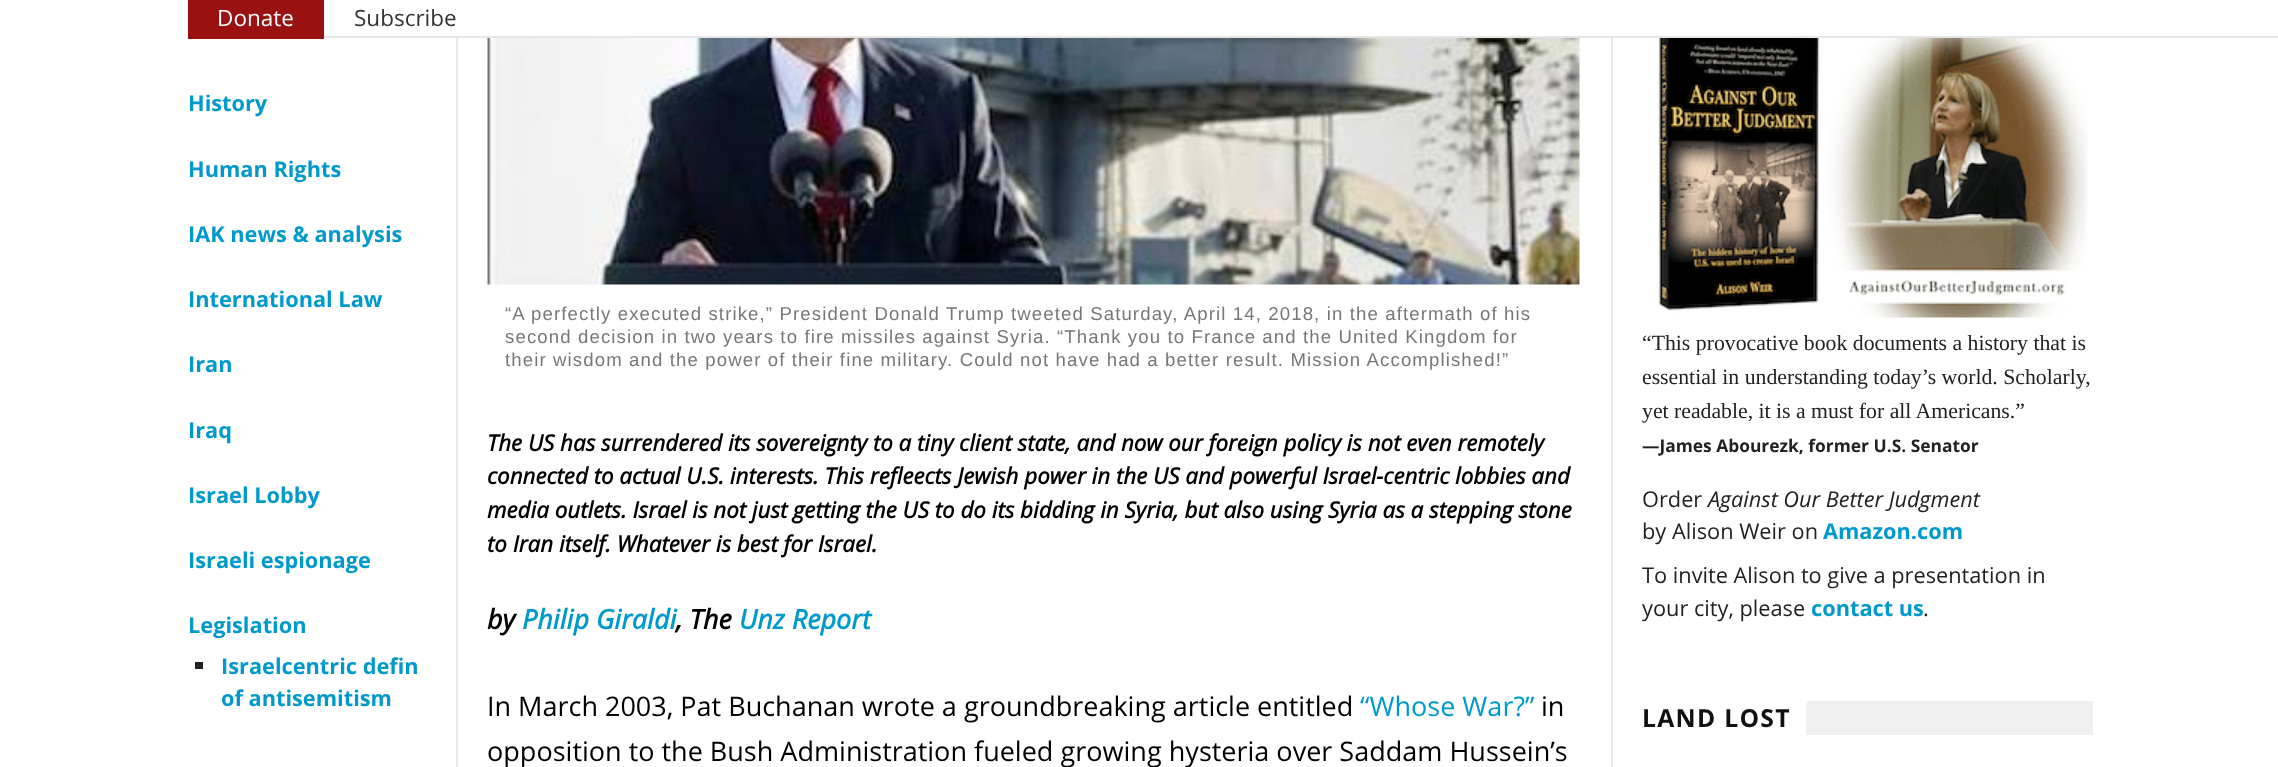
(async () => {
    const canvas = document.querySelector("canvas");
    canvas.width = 2278;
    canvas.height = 767;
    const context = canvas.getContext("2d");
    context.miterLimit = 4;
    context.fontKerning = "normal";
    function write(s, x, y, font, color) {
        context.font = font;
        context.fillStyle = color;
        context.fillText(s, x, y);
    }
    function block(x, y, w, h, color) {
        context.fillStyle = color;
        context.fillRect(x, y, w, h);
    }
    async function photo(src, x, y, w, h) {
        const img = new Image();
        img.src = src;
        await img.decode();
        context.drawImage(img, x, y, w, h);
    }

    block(0, 0, 2278, 767, "rgb(255, 255, 255)");
    block(324, 36, 1954, 2, "rgb(230, 230, 230)");
    block(188, 0, 136, 39, "rgb(153, 17, 17)");
    write("Donate", 217, 26, "22.5px Open Sans", "rgb(255, 255, 255)");
    write("Subscribe", 354, 26, "22.5px Open Sans", "rgb(51, 51, 51)");
    block(456, 38, 2, 729, "rgb(233, 233, 233)");
    write("History", 188, 111, "bold 21.75px Open Sans", "rgb(0, 153, 204)");
    write("Human Rights", 188, 177, "bold 21.75px Open Sans", "rgb(0, 153, 204)");
    write("IAK news & analysis", 188, 242, "bold 21.75px Open Sans", "rgb(0, 153, 204)");
    write("International Law", 188, 307, "bold 21.75px Open Sans", "rgb(0, 153, 204)");
    write("Iran", 188, 372, "bold 21.75px Open Sans", "rgb(0, 153, 204)");
    write("Iraq", 188, 438, "bold 21.75px Open Sans", "rgb(0, 153, 204)");
    write("Israel Lobby", 188, 503, "bold 21.75px Open Sans", "rgb(0, 153, 204)");
    write("Israeli espionage", 188, 568, "bold 21.75px Open Sans", "rgb(0, 153, 204)");
    write("Legislation", 188, 633, "bold 21.75px Open Sans", "rgb(0, 153, 204)");
    block(195, 662, 8, 7, "rgb(34, 34, 34)");
    write("Israelcentric defin", 221, 674, "bold 21.75px Open Sans", "rgb(0, 153, 204)");
    write("of antisemitism", 221, 706, "bold 21.75px Open Sans", "rgb(0, 153, 204)");
    await photo("media/1.png", 487, 38, 1093, 247);
    context.letterSpacing = "1.12px";
    write("“A perfectly executed strike,” President Donald Trump tweeted Saturday, April 14, 2018, in the aftermath of his", 505, 320, "18.6px Liberation Sans", "rgb(119, 119, 119)");
    write("second decision in two years to fire missiles against Syria. “Thank you to France and the United Kingdom for", 505, 343, "18.6px Liberation Sans", "rgb(119, 119, 119)");
    write("their wisdom and the power of their fine military. Could not have had a better result. Mission Accomplished!”", 505, 366, "18.6px Liberation Sans", "rgb(119, 119, 119)");
    context.letterSpacing = "0px";
    write("The US has surrendered its sovereignty to a tiny client state, and now our foreign policy is not even remotely", 487, 451, "italic bold 22.4px Open Sans", "rgb(0, 0, 0)");
    write("connected to actual U.S. interests. This refleects Jewish power in the US and powerful Israel-centric lobbies and", 487, 484, "italic bold 22.4px Open Sans", "rgb(0, 0, 0)");
    write("media outlets. Israel is not just getting the US to do its bidding in Syria, but also using Syria as a stepping stone", 487, 518, "italic bold 22.4px Open Sans", "rgb(0, 0, 0)");
    write("to Iran itself. Whatever is best for Israel.", 487, 552, "italic bold 22.4px Open Sans", "rgb(0, 0, 0)");
    write("by", 487, 629, "italic bold 27px Open Sans", "rgb(0, 0, 0)");
    write("Philip Giraldi", 522, 629, "italic bold 27px Open Sans", "rgb(0, 153, 204)");
    write(", The", 676, 629, "italic bold 27px Open Sans", "rgb(0, 0, 0)");
    write("Unz Report", 739, 629, "italic bold 27px Open Sans", "rgb(0, 153, 204)");
    write("In March 2003, Pat Buchanan wrote a groundbreaking article entitled", 487, 716, "27px Open Sans", "rgb(0, 0, 0)");
    write("“Whose War?”", 1360, 716, "27px Open Sans", "rgb(0, 153, 204)");
    write("in", 1541, 716, "27px Open Sans", "rgb(0, 0, 0)");
    write("opposition to the Bush Administration fueled growing hysteria over Saddam Hussein’s", 487, 761, "27px Open Sans", "rgb(0, 0, 0)");
    block(1611, 38, 2, 729, "rgb(233, 233, 233)");
    await photo("media/2.png", 1658, 38, 430, 280);
    write("“This provocative book documents a history that is", 1642, 350, "21.75px Liberation Serif", "rgb(34, 34, 34)");
    write("essential in understanding today’s world. Scholarly,", 1642, 384, "21.75px Liberation Serif", "rgb(34, 34, 34)");
    write("yet readable, it is a must for all Americans.”", 1642, 418, "21.75px Liberation Serif", "rgb(34, 34, 34)");
    write("—James Abourezk, former U.S. Senator", 1642, 452, "bold 17.4px Open Sans", "rgb(34, 34, 34)");
    write("Order", 1642, 507, "21.75px Open Sans", "rgb(34, 34, 34)");
    write("Against Our Better Judgment", 1708, 507, "italic 21.75px Open Sans", "rgb(34, 34, 34)");
    write("by Alison Weir on", 1642, 539, "21.75px Open Sans", "rgb(34, 34, 34)");
    write("Amazon.com", 1823, 539, "bold 21.75px Open Sans", "rgb(0, 153, 204)");
    write("To invite Alison to give a presentation in", 1642, 583, "21.75px Open Sans", "rgb(34, 34, 34)");
    write("your city, please", 1642, 616, "21.75px Open Sans", "rgb(34, 34, 34)");
    write("contact us", 1811, 616, "bold 21.75px Open Sans", "rgb(0, 153, 204)");
    write(".", 1923, 616, "21.75px Open Sans", "rgb(34, 34, 34)");
    block(1806, 701, 287, 34, "rgb(240, 240, 240)");
    context.letterSpacing = "1.25px";
    write("LAND LOST", 1642, 727, "bold 24.75px Open Sans", "rgb(17, 17, 17)");
})();
